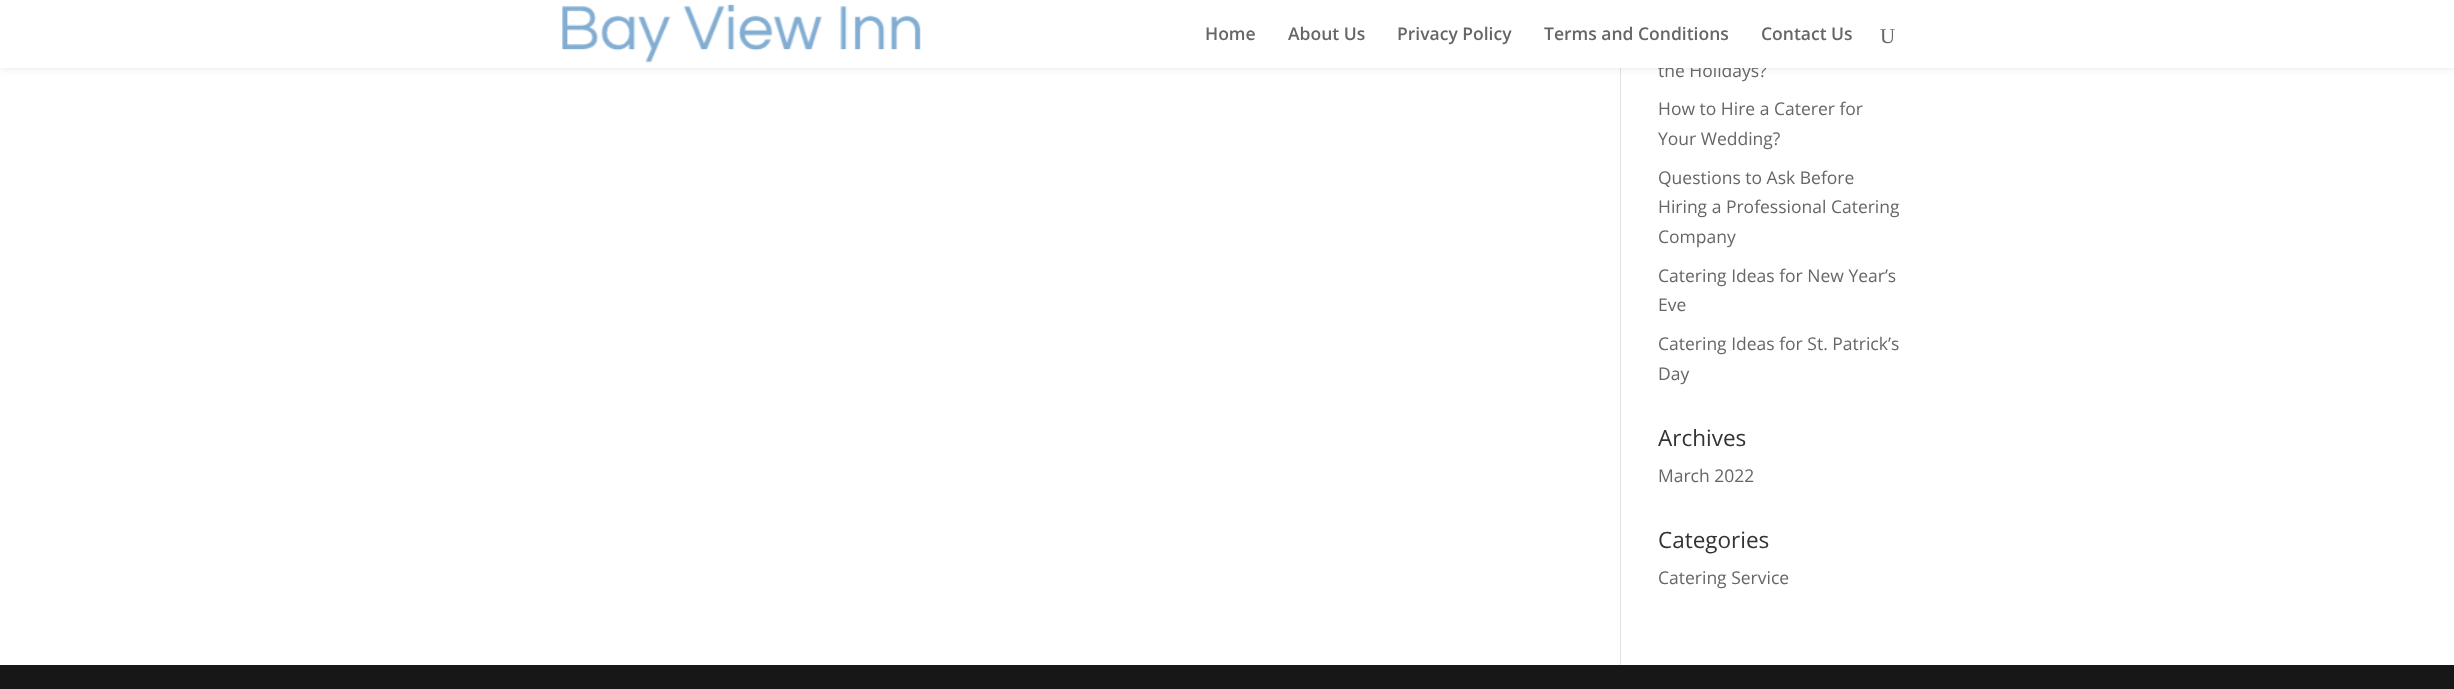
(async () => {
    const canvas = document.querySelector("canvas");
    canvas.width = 2454;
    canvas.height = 689;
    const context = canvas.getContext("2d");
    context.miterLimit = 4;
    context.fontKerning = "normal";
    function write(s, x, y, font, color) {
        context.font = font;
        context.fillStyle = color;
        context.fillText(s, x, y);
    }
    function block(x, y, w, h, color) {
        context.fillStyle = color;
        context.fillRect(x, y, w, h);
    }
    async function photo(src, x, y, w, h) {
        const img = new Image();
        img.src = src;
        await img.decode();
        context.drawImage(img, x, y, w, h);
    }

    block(0, 0, 2454, 689, "rgb(255, 255, 255)");
    block(1620, 68, 1, 597, "rgb(226, 226, 226)");
    context.fillStyle = "rgba(0, 0, 0, 0.1)";
    context.filter = "blur(4.5px)";
    context.beginPath();
    context.rect(0, 0, 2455, 68);
    context.fill();
    context.filter = "none";
    write("the Holidays?", 1658, 77, "17.5px Open Sans", "rgb(102, 102, 102)");
    block(0, 0, 2454, 68, "rgb(255, 255, 255)");
    await photo("media/1.png", 562, 4, 359, 59);
    write("Home", 1205, 40, "600 17.5px Open Sans", "rgb(102, 102, 102)");
    write("About Us", 1288, 40, "600 17.5px Open Sans", "rgb(102, 102, 102)");
    write("Privacy Policy", 1397, 40, "600 17.5px Open Sans", "rgb(102, 102, 102)");
    write("Terms and Conditions", 1544, 40, "600 17.5px Open Sans", "rgb(102, 102, 102)");
    write("Contact Us", 1761, 40, "600 17.5px Open Sans", "rgb(102, 102, 102)");
    write("U", 1880, 43, "21px Liberation Serif", "rgb(102, 102, 102)");
    write("How to Hire a Caterer for", 1658, 115, "17.5px Open Sans", "rgb(102, 102, 102)");
    write("Your Wedding?", 1658, 145, "17.5px Open Sans", "rgb(102, 102, 102)");
    write("Questions to Ask Before", 1658, 184, "17.5px Open Sans", "rgb(102, 102, 102)");
    write("Hiring a Professional Catering", 1658, 213, "17.5px Open Sans", "rgb(102, 102, 102)");
    write("Company", 1658, 243, "17.5px Open Sans", "rgb(102, 102, 102)");
    write("Catering Ideas for New Year’s", 1658, 282, "17.5px Open Sans", "rgb(102, 102, 102)");
    write("Eve", 1658, 311, "17.5px Open Sans", "rgb(102, 102, 102)");
    write("Catering Ideas for St. Patrick’s", 1658, 350, "17.5px Open Sans", "rgb(102, 102, 102)");
    write("Day", 1658, 380, "17.5px Open Sans", "rgb(102, 102, 102)");
    write("Archives", 1658, 446, "22.5px Open Sans", "rgb(51, 51, 51)");
    write("March 2022", 1658, 482, "17.5px Open Sans", "rgb(102, 102, 102)");
    write("Categories", 1658, 548, "22.5px Open Sans", "rgb(51, 51, 51)");
    write("Catering Service", 1658, 584, "17.5px Open Sans", "rgb(102, 102, 102)");
    block(0, 665, 2454, 24, "rgb(23, 23, 23)");
})();
